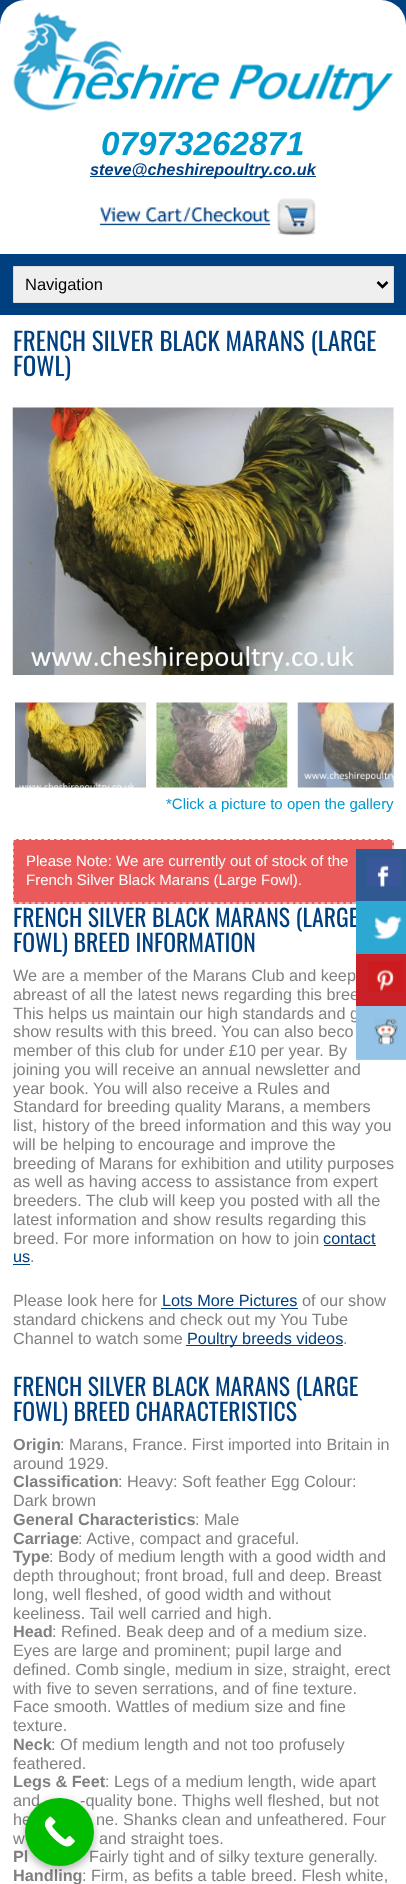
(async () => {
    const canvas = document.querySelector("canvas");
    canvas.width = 406;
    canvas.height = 1884;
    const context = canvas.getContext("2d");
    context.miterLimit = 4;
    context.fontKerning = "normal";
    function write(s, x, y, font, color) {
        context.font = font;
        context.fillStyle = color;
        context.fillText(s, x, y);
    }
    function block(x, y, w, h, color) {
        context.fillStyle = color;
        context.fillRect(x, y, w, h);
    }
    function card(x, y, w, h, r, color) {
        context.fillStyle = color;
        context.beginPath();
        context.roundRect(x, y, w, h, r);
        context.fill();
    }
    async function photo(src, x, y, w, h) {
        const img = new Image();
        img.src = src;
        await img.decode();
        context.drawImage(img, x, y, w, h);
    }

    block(0, 0, 406, 1884, "rgb(0, 64, 128)");
    context.fillStyle = "rgb(255, 255, 255)";
    context.beginPath();
    context.roundRect(0, 0, 406, 254, [25, 25, 0, 0]);
    context.fill();
    await photo("media/1.png", 13, 12, 380, 99);
    write("07973262871", 101, 155, "italic bold 33.25px Liberation Sans", "rgb(0, 153, 204)");
    block(90, 176, 226, 1, "rgb(0, 64, 128)");
    write("steve@cheshirepoultry.co.uk", 90, 175, "italic bold 16.25px Liberation Sans", "rgb(0, 64, 128)");
    await photo("media/2.png", 99, 198, 217, 38);
    context.fillStyle = "rgba(0, 0, 0, 0.75)";
    context.filter = "blur(17.5px)";
    context.beginPath();
    context.rect(11, 345, 384, 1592);
    context.fill();
    context.filter = "none";
    context.fillStyle = "rgb(239, 239, 239)";
    context.beginPath();
    context.rect(13.5, 266.5, 380, 36);
    context.fill();
    context.strokeStyle = "rgb(221, 221, 221)";
    context.stroke();
    context.beginPath();
    context.moveTo(377.5, 282);
    context.lineTo(382.5, 287);
    context.lineTo(387.5, 282);
    context.strokeStyle = "rgb(0, 0, 0)";
    context.lineWidth = 2.5;
    context.stroke();
    write("Navigation", 25, 290, "16.5px Liberation Sans", "rgb(0, 0, 0)");
    block(0, 315, 406, 1569, "rgb(255, 255, 255)");
    write("FRENCH SILVER BLACK MARANS (LARGE", 13, 351, "25px Oswald", "rgb(0, 64, 128)");
    write("FOWL)", 13, 376, "25px Oswald", "rgb(0, 64, 128)");
    await photo("media/3.png", 12, 407, 382, 268);
    await photo("media/4.png", 15, 702, 132, 86);
    await photo("media/5.png", 156, 702, 132, 86);
    await photo("media/6.png", 297, 702, 97, 86);
    write("*Click a picture to open the gallery", 166, 809, "15px Liberation Sans", "rgb(0, 153, 204)");
    block(13, 839, 381, 65, "rgb(234, 90, 90)");
    context.beginPath();
    context.moveTo(12.5, 839.5);
    context.lineTo(394, 839.5);
    context.strokeStyle = "rgb(255, 255, 255)";
    context.lineWidth = 1.2;
    context.setLineDash([3.75, 2.54]);
    context.stroke();
    context.beginPath();
    context.moveTo(393, 839);
    context.lineTo(393, 904);
    context.setLineDash([3.75, 2.38]);
    context.stroke();
    context.beginPath();
    context.moveTo(12.5, 903);
    context.lineTo(394, 903);
    context.setLineDash([3.75, 2.54]);
    context.stroke();
    context.save();
    context.beginPath();
    context.rect(13, 328, 381, 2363);
    context.clip();
    context.beginPath();
    context.moveTo(13, 839);
    context.lineTo(13, 904);
    context.setLineDash([3.75, 2.38]);
    context.stroke();
    context.restore();
    write("Please Note: We are currently out of stock of the", 26, 866, "15px Liberation Sans", "rgb(255, 255, 255)");
    write("French Silver Black Marans (Large Fowl).", 26, 885, "15px Liberation Sans", "rgb(255, 255, 255)");
    write("FRENCH SILVER BLACK MARANS (LARGE", 13, 927, "23.75px Oswald", "rgb(0, 64, 128)");
    write("FOWL) BREED INFORMATION", 13, 952, "23.75px Oswald", "rgb(0, 64, 128)");
    write("We are a member of the Marans Club and keep", 13, 981, "16.25px Liberation Sans", "rgb(128, 128, 128)");
    write("abreast of all the latest news regarding this bree", 13, 1000, "16.25px Liberation Sans", "rgb(128, 128, 128)");
    write("This helps us maintain our high standards and g", 13, 1019, "16.25px Liberation Sans", "rgb(128, 128, 128)");
    write("show results with this breed. You can also beco", 13, 1037, "16.25px Liberation Sans", "rgb(128, 128, 128)");
    write("member of this club for under £10 per year. By", 13, 1056, "16.25px Liberation Sans", "rgb(128, 128, 128)");
    write("joining you will receive an annual newsletter and", 13, 1075, "16.25px Liberation Sans", "rgb(128, 128, 128)");
    write("year book. You will also receive a Rules and", 13, 1094, "16.25px Liberation Sans", "rgb(128, 128, 128)");
    write("Standard for breeding quality Marans, a members", 13, 1112, "16.25px Liberation Sans", "rgb(128, 128, 128)");
    write("list, history of the breed information and this way you", 13, 1131, "16.25px Liberation Sans", "rgb(128, 128, 128)");
    write("will be helping to encourage and improve the", 13, 1150, "16.25px Liberation Sans", "rgb(128, 128, 128)");
    write("breeding of Marans for exhibition and utility purposes", 13, 1169, "16.25px Liberation Sans", "rgb(128, 128, 128)");
    write("as well as having access to assistance from expert", 13, 1187, "16.25px Liberation Sans", "rgb(128, 128, 128)");
    write("breeders. The club will keep you posted with all the", 13, 1206, "16.25px Liberation Sans", "rgb(128, 128, 128)");
    write("latest information and show results regarding this", 13, 1225, "16.25px Liberation Sans", "rgb(128, 128, 128)");
    write("breed. For more information on how to join", 13, 1244, "16.25px Liberation Sans", "rgb(128, 128, 128)");
    write("contact", 323, 1244, "16.25px Liberation Sans", "rgb(0, 64, 128)");
    block(324, 1245, 52, 1, "rgb(0, 64, 128)");
    write("us", 13, 1262, "16.25px Liberation Sans", "rgb(0, 64, 128)");
    block(13, 1264, 17, 1, "rgb(0, 64, 128)");
    write(".", 30, 1262, "16.25px Liberation Sans", "rgb(128, 128, 128)");
    write("Please look here for", 13, 1306, "16.25px Liberation Sans", "rgb(128, 128, 128)");
    write("Lots More Pictures", 162, 1306, "16.25px Liberation Sans", "rgb(0, 64, 128)");
    block(161, 1308, 137, 1, "rgb(0, 64, 128)");
    write("of our show", 302, 1306, "16.25px Liberation Sans", "rgb(128, 128, 128)");
    write("standard chickens and check out my You Tube", 13, 1325, "16.25px Liberation Sans", "rgb(128, 128, 128)");
    write("Channel to watch some", 13, 1344, "16.25px Liberation Sans", "rgb(128, 128, 128)");
    block(186, 1345, 157, 1, "rgb(0, 64, 128)");
    write("Poultry breeds videos", 187, 1344, "16.25px Liberation Sans", "rgb(0, 64, 128)");
    write(".", 343, 1344, "16.25px Liberation Sans", "rgb(128, 128, 128)");
    write("FRENCH SILVER BLACK MARANS (LARGE", 13, 1396, "23.75px Oswald", "rgb(0, 64, 128)");
    write("FOWL) BREED CHARACTERISTICS", 13, 1421, "23.75px Oswald", "rgb(0, 64, 128)");
    write("Origin", 13, 1450, "bold 16.25px Liberation Sans", "rgb(128, 128, 128)");
    write(": Marans, France. First imported into Britain in", 60, 1450, "16.25px Liberation Sans", "rgb(128, 128, 128)");
    write("around 1929.", 13, 1469, "16.25px Liberation Sans", "rgb(128, 128, 128)");
    write("Classification", 13, 1487, "bold 16.25px Liberation Sans", "rgb(128, 128, 128)");
    write(": Heavy: Soft feather Egg Colour:", 118, 1487, "16.25px Liberation Sans", "rgb(128, 128, 128)");
    write("Dark brown", 13, 1506, "16.25px Liberation Sans", "rgb(128, 128, 128)");
    write("General Characteristics", 13, 1525, "bold 16.25px Liberation Sans", "rgb(128, 128, 128)");
    write(": Male", 195, 1525, "16.25px Liberation Sans", "rgb(128, 128, 128)");
    write("Carriage", 13, 1544, "bold 16.25px Liberation Sans", "rgb(128, 128, 128)");
    write(": Active, compact and graceful.", 78, 1544, "16.25px Liberation Sans", "rgb(128, 128, 128)");
    context.save();
    context.beginPath();
    context.rect(13, 328, 381, 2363);
    context.clip();
    write("Type", 13, 1562, "bold 16.25px Liberation Sans", "rgb(128, 128, 128)");
    context.restore();
    write(": Body of medium length with a good width and", 49, 1562, "16.25px Liberation Sans", "rgb(128, 128, 128)");
    write("depth throughout; front broad, full and deep. Breast", 13, 1581, "16.25px Liberation Sans", "rgb(128, 128, 128)");
    write("long, well fleshed, of good width and without", 13, 1600, "16.25px Liberation Sans", "rgb(128, 128, 128)");
    write("keeliness. Tail well carried and high.", 13, 1619, "16.25px Liberation Sans", "rgb(128, 128, 128)");
    write("Head", 13, 1637, "bold 16.25px Liberation Sans", "rgb(128, 128, 128)");
    write(": Refined. Beak deep and of a medium size.", 52, 1637, "16.25px Liberation Sans", "rgb(128, 128, 128)");
    write("Eyes are large and prominent; pupil large and", 13, 1656, "16.25px Liberation Sans", "rgb(128, 128, 128)");
    write("defined. Comb single, medium in size, straight, erect", 13, 1675, "16.25px Liberation Sans", "rgb(128, 128, 128)");
    write("with five to seven serrations, and of fine texture.", 13, 1694, "16.25px Liberation Sans", "rgb(128, 128, 128)");
    write("Face smooth. Wattles of medium size and fine", 13, 1712, "16.25px Liberation Sans", "rgb(128, 128, 128)");
    write("texture.", 13, 1731, "16.25px Liberation Sans", "rgb(128, 128, 128)");
    write("Neck", 13, 1750, "bold 16.25px Liberation Sans", "rgb(128, 128, 128)");
    write(": Of medium length and not too profusely", 51, 1750, "16.25px Liberation Sans", "rgb(128, 128, 128)");
    write("feathered.", 13, 1769, "16.25px Liberation Sans", "rgb(128, 128, 128)");
    write("Legs & Feet", 13, 1787, "bold 16.25px Liberation Sans", "rgb(128, 128, 128)");
    write(": Legs of a medium length, wide apart", 105, 1787, "16.25px Liberation Sans", "rgb(128, 128, 128)");
    write("and", 13, 1806, "16.25px Liberation Sans", "rgb(128, 128, 128)");
    write("-quality bone. Thighs well fleshed, but not", 80, 1806, "16.25px Liberation Sans", "rgb(128, 128, 128)");
    write("he", 13, 1825, "16.25px Liberation Sans", "rgb(128, 128, 128)");
    write("ne. Shanks clean and unfeathered. Four", 96, 1825, "16.25px Liberation Sans", "rgb(128, 128, 128)");
    write("w", 13, 1844, "16.25px Liberation Sans", "rgb(128, 128, 128)");
    write("and straight toes.", 99, 1844, "16.25px Liberation Sans", "rgb(128, 128, 128)");
    write("Pl", 13, 1862, "bold 16.25px Liberation Sans", "rgb(128, 128, 128)");
    write("Fairly tight and of silky texture generally.", 89, 1862, "16.25px Liberation Sans", "rgb(128, 128, 128)");
    write("Handling", 13, 1881, "bold 16.25px Liberation Sans", "rgb(128, 128, 128)");
    write(": Firm, as befits a table breed. Flesh white,", 82, 1881, "16.25px Liberation Sans", "rgb(128, 128, 128)");
    block(356, 849, 50, 52, "rgb(48, 88, 145)");
    await photo("media/7.png", 367, 858, 35, 29);
    block(356, 901, 50, 53, "rgb(44, 168, 210)");
    await photo("media/8.png", 374, 916, 28, 24);
    block(356, 954, 50, 52, "rgb(202, 32, 39)");
    await photo("media/9.png", 368, 961, 36, 31);
    block(356, 1006, 50, 53, "rgb(147, 195, 230)");
    block(356, 1059, 50, 1, "rgb(158, 201, 233)");
    await photo("media/10.png", 374, 1018, 24, 27);
    context.fillStyle = "rgba(0, 0, 0, 0.3)";
    context.filter = "blur(4px)";
    context.beginPath();
    context.roundRect(25, 1801, 69, 69, 34.5);
    context.fill();
    context.filter = "none";
    card(25, 1798, 69, 68, 34, "rgb(0, 187, 0)");
    await photo("media/11.png", 44, 1816, 31, 31);
})();
